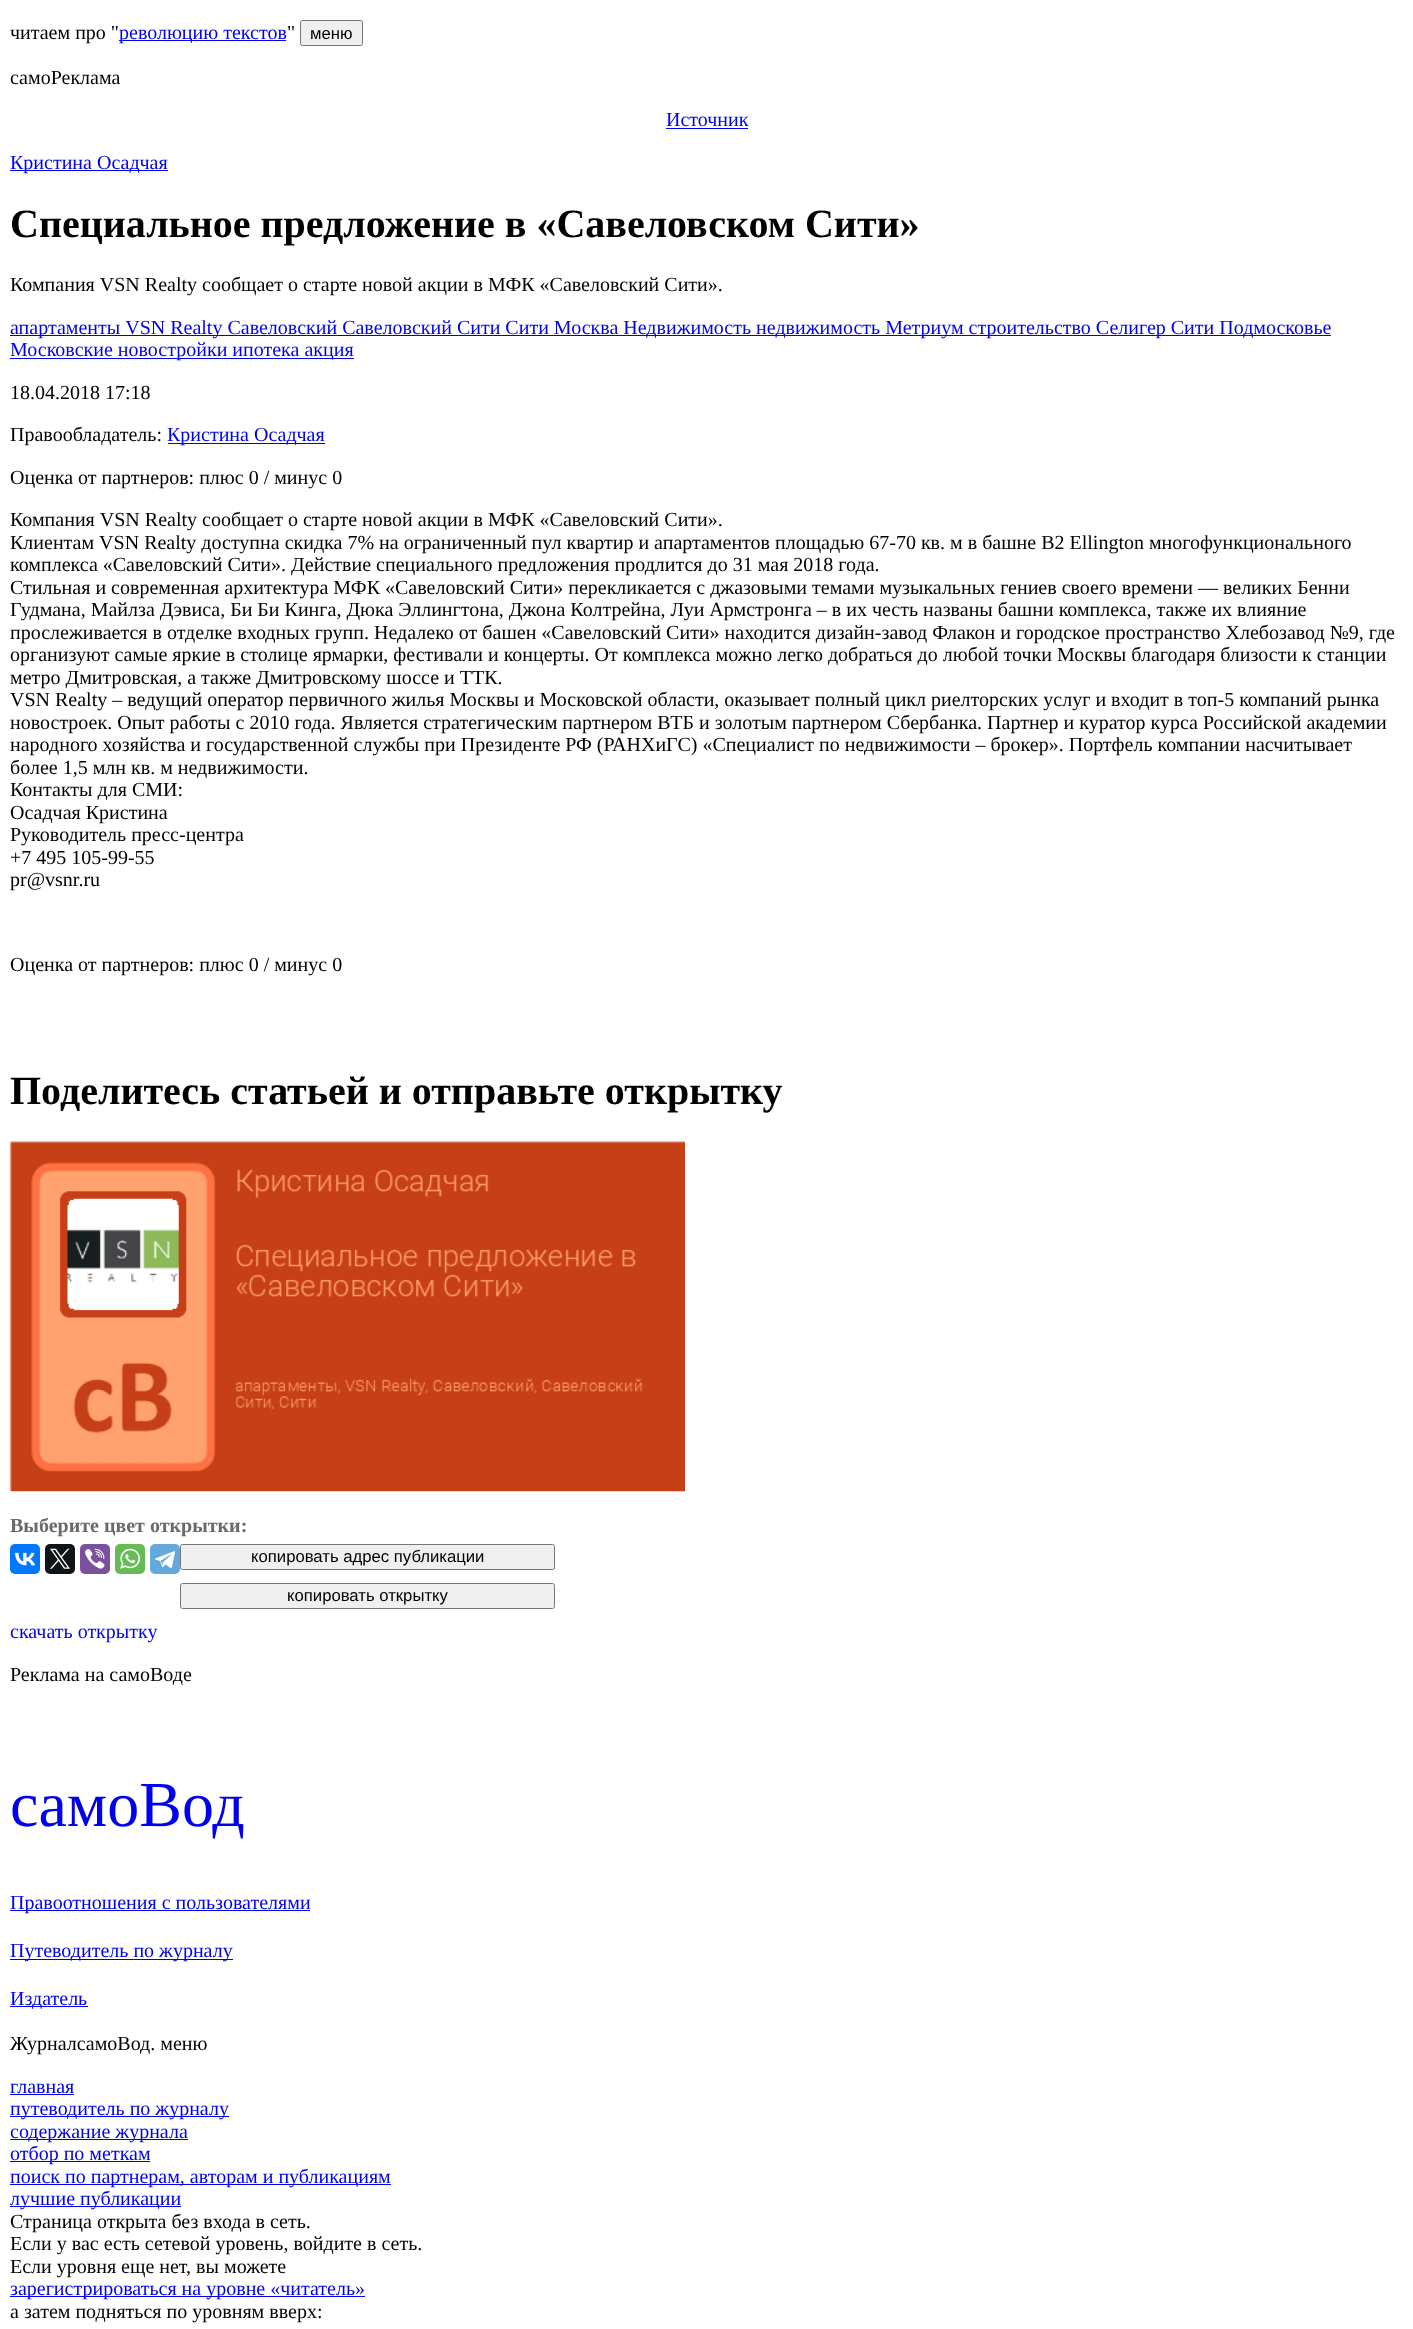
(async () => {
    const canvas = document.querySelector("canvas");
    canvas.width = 1413;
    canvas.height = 2329;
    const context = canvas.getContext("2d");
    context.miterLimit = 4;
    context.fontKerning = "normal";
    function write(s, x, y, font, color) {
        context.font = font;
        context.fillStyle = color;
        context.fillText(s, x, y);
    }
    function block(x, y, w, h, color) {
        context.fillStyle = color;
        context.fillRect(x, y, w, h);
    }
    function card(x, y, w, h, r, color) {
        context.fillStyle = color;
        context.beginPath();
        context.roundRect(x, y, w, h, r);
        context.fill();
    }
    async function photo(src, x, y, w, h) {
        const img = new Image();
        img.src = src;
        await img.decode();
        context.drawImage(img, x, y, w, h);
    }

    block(0, 0, 1413, 2329, "rgb(255, 255, 255)");
    write("читаем про \"", 10, 39, "20px Liberation Serif", "rgb(0, 0, 0)");
    write("\"", 287, 39, "20px Liberation Serif", "rgb(0, 0, 0)");
    block(119, 40, 167, 1, "rgb(0, 0, 238)");
    write("революцию текстов", 119, 39, "20px Liberation Serif", "rgb(0, 0, 238)");
    context.fillStyle = "rgb(239, 239, 239)";
    context.beginPath();
    context.roundRect(300.5, 20.5, 62, 25, 2);
    context.fill();
    context.strokeStyle = "rgb(118, 118, 118)";
    context.stroke();
    write("меню", 310, 39, "16.7px Liberation Sans", "rgb(0, 0, 0)");
    write("самоРеклама", 10, 84, "20px Liberation Serif", "rgb(0, 0, 0)");
    write("Источник", 666, 126, "20px Liberation Serif", "rgb(0, 0, 238)");
    block(666, 128, 82, 1, "rgb(0, 0, 238)");
    block(10, 170, 158, 1, "rgb(0, 0, 238)");
    write("Кристина Осадчая", 10, 169, "20px Liberation Serif", "rgb(0, 0, 238)");
    write("Специальное предложение в «Савеловском Сити»", 10, 237, "bold 40px Liberation Serif", "rgb(0, 0, 0)");
    write("Компания VSN Realty сообщает о старте новой акции в МФК «Савеловский Сити».", 10, 291, "20px Liberation Serif", "rgb(0, 0, 0)");
    block(10, 335, 1321, 1, "rgb(0, 0, 238)");
    write("апартаменты VSN Realty Савеловский Савеловский Сити Сити Москва Недвижимость недвижимость Метриум строительство Селигер Сити Подмосковье", 10, 334, "20px Liberation Serif", "rgb(0, 0, 238)");
    block(10, 358, 344, 1, "rgb(0, 0, 238)");
    write("Московские новостройки ипотека акция", 10, 356, "20px Liberation Serif", "rgb(0, 0, 238)");
    write("18.04.2018 17:18", 10, 399, "20px Liberation Serif", "rgb(0, 0, 0)");
    write("Правообладатель:", 10, 441, "20px Liberation Serif", "rgb(0, 0, 0)");
    block(168, 443, 157, 1, "rgb(0, 0, 238)");
    write("Кристина Осадчая", 167, 441, "20px Liberation Serif", "rgb(0, 0, 238)");
    write("Оценка от партнеров: плюс 0 / минус 0", 10, 484, "20px Liberation Serif", "rgb(0, 0, 0)");
    write("Компания VSN Realty сообщает о старте новой акции в МФК «Савеловский Сити».", 10, 526, "20px Liberation Serif", "rgb(0, 0, 0)");
    write("Клиентам VSN Realty доступна скидка 7% на ограниченный пул квартир и апартаментов площадью 67-70 кв. м в башне В2 Ellington многофункционального", 10, 549, "20px Liberation Serif", "rgb(0, 0, 0)");
    write("комплекса «Савеловский Сити». Действие специального предложения продлится до 31 мая 2018 года.", 10, 571, "20px Liberation Serif", "rgb(0, 0, 0)");
    write("Стильная и современная архитектура МФК «Савеловский Сити» перекликается с джазовыми темами музыкальных гениев своего времени — великих Бенни", 10, 594, "20px Liberation Serif", "rgb(0, 0, 0)");
    write("Гудмана, Майлза Дэвиса, Би Би Кинга, Дюка Эллингтона, Джона Колтрейна, Луи Армстронга – в их честь названы башни комплекса, также их влияние", 10, 616, "20px Liberation Serif", "rgb(0, 0, 0)");
    write("прослеживается в отделке входных групп. Недалеко от башен «Савеловский Сити» находится дизайн-завод Флакон и городское пространство Хлебозавод №9, где", 10, 639, "20px Liberation Serif", "rgb(0, 0, 0)");
    write("организуют самые яркие в столице ярмарки, фестивали и концерты. От комплекса можно легко добраться до любой точки Москвы благодаря близости к станции", 10, 661, "20px Liberation Serif", "rgb(0, 0, 0)");
    write("метро Дмитровская, а также Дмитровскому шоссе и ТТК.", 10, 684, "20px Liberation Serif", "rgb(0, 0, 0)");
    write("VSN Realty – ведущий оператор первичного жилья Москвы и Московской области, оказывает полный цикл риелторских услуг и входит в топ-5 компаний рынка", 10, 706, "20px Liberation Serif", "rgb(0, 0, 0)");
    write("новостроек. Опыт работы с 2010 года. Является стратегическим партнером ВТБ и золотым партнером Сбербанка. Партнер и куратор курса Российской академии", 10, 729, "20px Liberation Serif", "rgb(0, 0, 0)");
    write("народного хозяйства и государственной службы при Президенте РФ (РАНХиГС) «Специалист по недвижимости – брокер». Портфель компании насчитывает", 10, 751, "20px Liberation Serif", "rgb(0, 0, 0)");
    write("более 1,5 млн кв. м недвижимости.", 10, 774, "20px Liberation Serif", "rgb(0, 0, 0)");
    write("Контакты для СМИ:", 10, 796, "20px Liberation Serif", "rgb(0, 0, 0)");
    write("Осадчая Кристина", 10, 819, "20px Liberation Serif", "rgb(0, 0, 0)");
    write("Руководитель пресс-центра", 10, 841, "20px Liberation Serif", "rgb(0, 0, 0)");
    write("+7 495 105-99-55", 10, 864, "20px Liberation Serif", "rgb(0, 0, 0)");
    write("pr@vsnr.ru", 10, 886, "20px Liberation Serif", "rgb(0, 0, 0)");
    write("Оценка от партнеров: плюс 0 / минус 0", 10, 971, "20px Liberation Serif", "rgb(0, 0, 0)");
    write("Поделитесь статьей и отправьте открытку", 10, 1104, "bold 40px Liberation Serif", "rgb(0, 0, 0)");
    await photo("media/1.png", 10, 1141, 675, 351);
    write("Выберите цвет открытки:", 10, 1532, "bold 20px Liberation Serif", "rgb(105, 105, 105)");
    card(10, 1544, 30, 30, 5, "rgb(0, 119, 255)");
    await photo("media/2.png", 15, 1552, 20, 14);
    card(45, 1544, 30, 30, 5, "rgb(15, 20, 25)");
    await photo("media/3.png", 50, 1548, 20, 21);
    card(80, 1544, 30, 30, 5, "rgb(123, 81, 157)");
    await photo("media/4.png", 85, 1548, 20, 21);
    card(115, 1544, 30, 30, 5, "rgb(101, 188, 84)");
    await photo("media/5.png", 120, 1548, 20, 21);
    card(150, 1544, 30, 30, 5, "rgb(100, 169, 220)");
    await photo("media/6.png", 155, 1551, 20, 17);
    context.fillStyle = "rgb(239, 239, 239)";
    context.beginPath();
    context.roundRect(180.5, 1544.5, 374, 25, 2);
    context.fill();
    context.stroke();
    write("копировать адрес публикации", 251, 1562, "16.7px Liberation Sans", "rgb(0, 0, 0)");
    context.fillStyle = "rgb(239, 239, 239)";
    context.beginPath();
    context.roundRect(180.5, 1583.5, 374, 25, 2);
    context.fill();
    context.stroke();
    write("копировать открытку", 287, 1601, "16.7px Liberation Sans", "rgb(0, 0, 0)");
    write("скачать открытку", 10, 1638, "20px Liberation Serif", "rgb(0, 0, 238)");
    write("Реклама на самоВоде", 10, 1681, "20px Liberation Serif", "rgb(0, 0, 0)");
    write("cамоВод", 10, 1826, "64px Liberation Serif", "rgb(0, 0, 238)");
    block(10, 1910, 300, 1, "rgb(0, 0, 238)");
    write("Правоотношения с пользователями", 10, 1909, "20px Liberation Serif", "rgb(0, 0, 238)");
    block(10, 1959, 223, 1, "rgb(0, 0, 238)");
    write("Путеводитель по журналу", 10, 1957, "20px Liberation Serif", "rgb(0, 0, 238)");
    block(10, 2006, 78, 1, "rgb(0, 0, 238)");
    write("Издатель", 10, 2005, "20px Liberation Serif", "rgb(0, 0, 238)");
    write("ЖурналсамоВод. меню", 10, 2050, "20px Liberation Serif", "rgb(0, 0, 0)");
    write("главная", 10, 2093, "20px Liberation Serif", "rgb(0, 0, 238)");
    block(10, 2094, 64, 1, "rgb(0, 0, 238)");
    block(10, 2116, 219, 1, "rgb(0, 0, 238)");
    write("путеводитель по журналу", 10, 2115, "20px Liberation Serif", "rgb(0, 0, 238)");
    block(10, 2139, 178, 1, "rgb(0, 0, 238)");
    write("содержание журнала", 10, 2138, "20px Liberation Serif", "rgb(0, 0, 238)");
    block(10, 2161, 140, 1, "rgb(0, 0, 238)");
    write("отбор по меткам", 10, 2160, "20px Liberation Serif", "rgb(0, 0, 238)");
    block(10, 2184, 381, 1, "rgb(0, 0, 238)");
    write("поиск по партнерам, авторам и публикациям", 10, 2183, "20px Liberation Serif", "rgb(0, 0, 238)");
    block(10, 2206, 171, 1, "rgb(0, 0, 238)");
    write("лучшие публикации", 10, 2205, "20px Liberation Serif", "rgb(0, 0, 238)");
    write("Страница открыта без входа в сеть.", 10, 2228, "20px Liberation Serif", "rgb(0, 0, 0)");
    write("Если у вас есть сетевой уровень, войдите в сеть.", 10, 2250, "20px Liberation Serif", "rgb(0, 0, 0)");
    write("Если уровня еще нет, вы можете", 10, 2273, "20px Liberation Serif", "rgb(0, 0, 0)");
    block(10, 2296, 355, 1, "rgb(0, 0, 238)");
    write("зарегистрироваться на уровне «читатель»", 10, 2295, "20px Liberation Serif", "rgb(0, 0, 238)");
    write("а затем подняться по уровням вверх:", 10, 2318, "20px Liberation Serif", "rgb(0, 0, 0)");
})();
